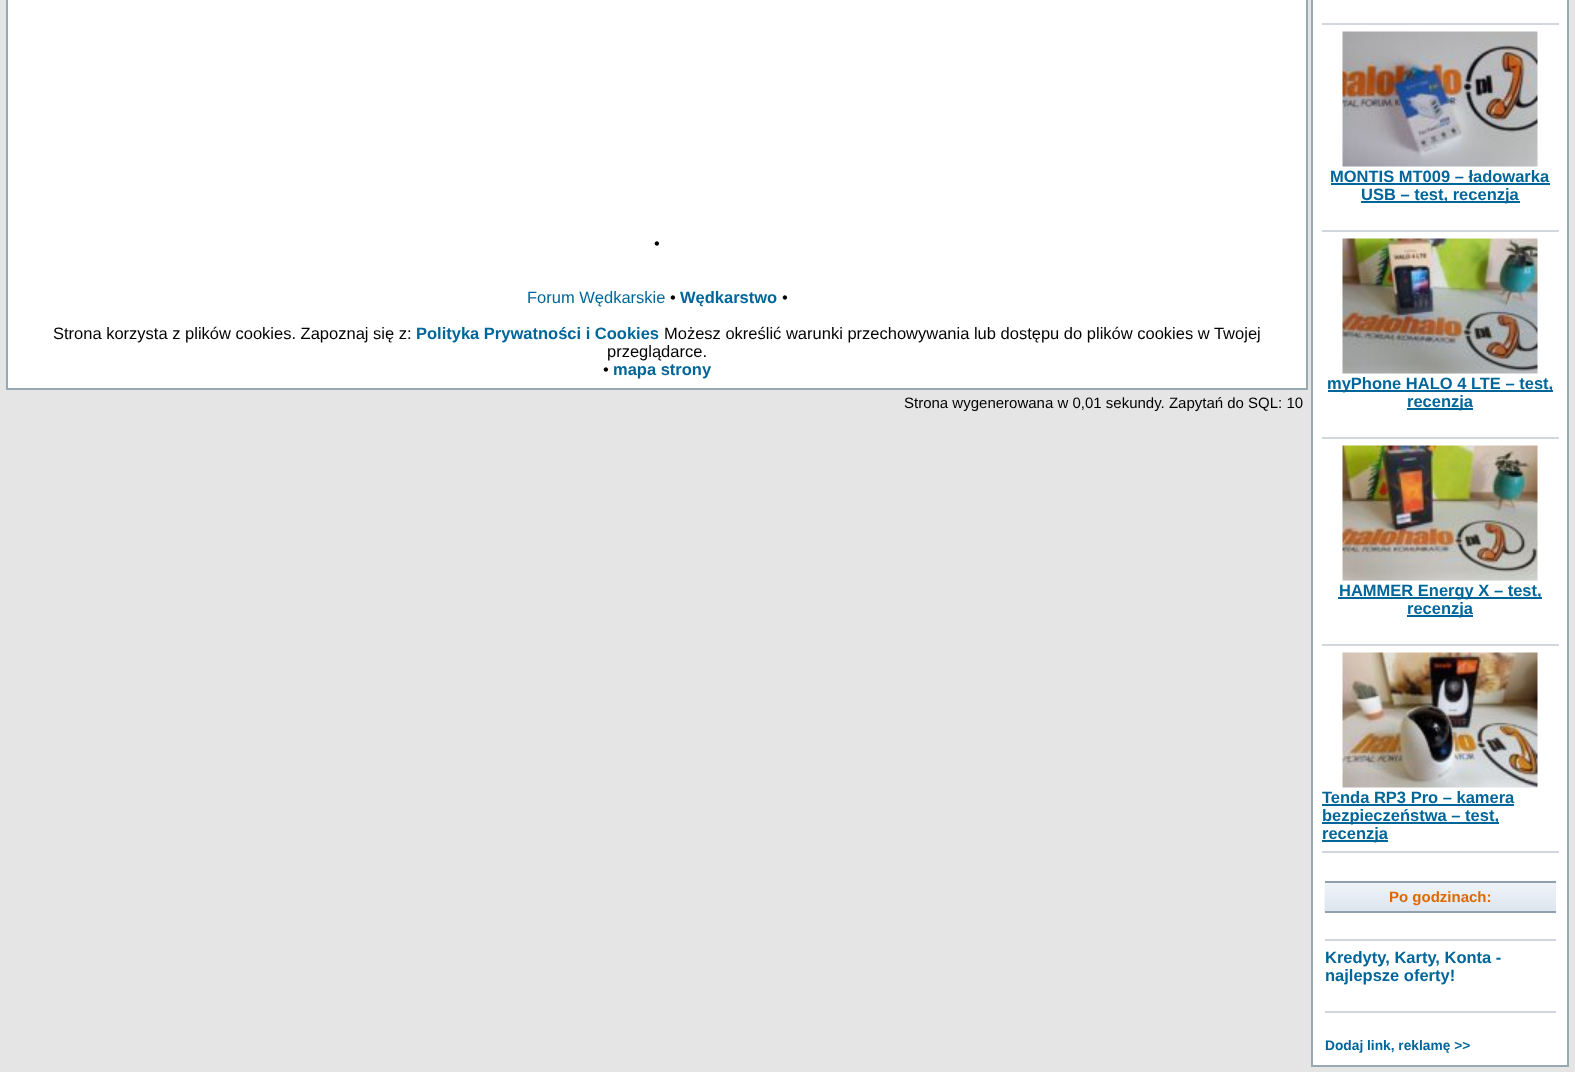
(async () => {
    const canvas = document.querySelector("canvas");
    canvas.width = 1575;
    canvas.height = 1072;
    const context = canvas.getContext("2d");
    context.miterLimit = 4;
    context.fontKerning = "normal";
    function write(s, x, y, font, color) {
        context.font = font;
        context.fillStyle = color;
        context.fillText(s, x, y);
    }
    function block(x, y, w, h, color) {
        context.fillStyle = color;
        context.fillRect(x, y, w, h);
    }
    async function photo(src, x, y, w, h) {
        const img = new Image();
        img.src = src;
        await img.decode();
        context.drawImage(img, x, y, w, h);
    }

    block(0, 0, 1575, 1072, "rgb(229, 229, 229)");
    context.fillStyle = "rgb(255, 255, 255)";
    context.beginPath();
    context.rect(7, -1, 1300, 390);
    context.fill();
    context.strokeStyle = "rgb(152, 170, 177)";
    context.lineWidth = 2;
    context.stroke();
    write("•", 654, 249, "16.5px Liberation Sans", "rgb(0, 0, 0)");
    write("Forum Wędkarskie", 527, 303, "16.5px Liberation Sans", "rgb(0, 102, 153)");
    write("•", 670, 303, "16.5px Liberation Sans", "rgb(0, 0, 0)");
    write("Wędkarstwo", 680, 303, "bold 16.5px Liberation Sans", "rgb(0, 102, 153)");
    write("•", 782, 303, "16.5px Liberation Sans", "rgb(0, 0, 0)");
    write("Strona korzysta z plików cookies. Zapoznaj się z:", 53, 339, "16.5px Liberation Sans", "rgb(0, 0, 0)");
    write("Polityka Prywatności i Cookies", 416, 339, "bold 16.5px Liberation Sans", "rgb(0, 102, 153)");
    write("Możesz określić warunki przechowywania lub dostępu do plików cookies w Twojej", 664, 339, "16.5px Liberation Sans", "rgb(0, 0, 0)");
    write("przeglądarce.", 607, 357, "16.5px Liberation Sans", "rgb(0, 0, 0)");
    write("•", 603, 375, "16.5px Liberation Sans", "rgb(0, 0, 0)");
    write("mapa strony", 613, 375, "bold 16.5px Liberation Sans", "rgb(0, 102, 153)");
    write("Strona wygenerowana w 0,01 sekundy. Zapytań do SQL: 10", 904, 408, "15px Liberation Sans", "rgb(0, 0, 0)");
    context.fillStyle = "rgb(255, 255, 255)";
    context.beginPath();
    context.rect(1312, -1, 256, 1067);
    context.fill();
    context.stroke();
    block(1322, 23, 237, 2, "rgb(209, 215, 220)");
    await photo("media/1.png", 1342, 31, 196, 136);
    write("MONTIS MT009 – ładowarka", 1330, 182, "bold 16.5px Liberation Sans", "rgb(0, 102, 153)");
    block(1331, 183, 219, 2, "rgb(0, 102, 153)");
    block(1361, 201, 159, 2, "rgb(0, 102, 153)");
    write("USB – test, recenzja", 1361, 200, "bold 16.5px Liberation Sans", "rgb(0, 102, 153)");
    block(1322, 230, 237, 2, "rgb(209, 215, 220)");
    await photo("media/2.png", 1342, 238, 196, 136);
    block(1328, 390, 225, 2, "rgb(0, 102, 153)");
    write("myPhone HALO 4 LTE – test,", 1327, 389, "bold 16.5px Liberation Sans", "rgb(0, 102, 153)");
    block(1407, 408, 66, 2, "rgb(0, 102, 153)");
    write("recenzja", 1407, 407, "bold 16.5px Liberation Sans", "rgb(0, 102, 153)");
    block(1322, 437, 237, 2, "rgb(209, 215, 220)");
    await photo("media/3.png", 1342, 445, 196, 136);
    block(1338, 597, 204, 2, "rgb(0, 102, 153)");
    write("HAMMER Energy X – test,", 1339, 596, "bold 16.5px Liberation Sans", "rgb(0, 102, 153)");
    block(1407, 615, 66, 2, "rgb(0, 102, 153)");
    write("recenzja", 1407, 614, "bold 16.5px Liberation Sans", "rgb(0, 102, 153)");
    block(1322, 644, 237, 2, "rgb(209, 215, 220)");
    await photo("media/4.png", 1342, 652, 196, 136);
    write("Tenda RP3 Pro – kamera", 1322, 803, "bold 16.5px Liberation Sans", "rgb(0, 102, 153)");
    block(1322, 804, 192, 2, "rgb(0, 102, 153)");
    block(1322, 822, 177, 2, "rgb(0, 102, 153)");
    write("bezpieczeństwa – test,", 1322, 821, "bold 16.5px Liberation Sans", "rgb(0, 102, 153)");
    block(1322, 840, 66, 2, "rgb(0, 102, 153)");
    write("recenzja", 1322, 839, "bold 16.5px Liberation Sans", "rgb(0, 102, 153)");
    block(1322, 851, 237, 2, "rgb(209, 215, 220)");
    block(1555, 883, 1, 28, "rgb(229, 235, 243)");
    await photo("media/5.png", 1324, 882, 232, 30);
    block(1325, 881, 231, 2, "rgb(145, 160, 174)");
    block(1325, 911, 231, 2, "rgb(145, 160, 174)");
    write("Po godzinach:", 1389, 902, "bold 15px Liberation Sans", "rgb(221, 105, 0)");
    block(1325, 939, 231, 2, "rgb(209, 215, 220)");
    write("Kredyty, Karty, Konta -", 1325, 963, "bold 16.5px Liberation Sans", "rgb(0, 102, 153)");
    write("najlepsze oferty!", 1325, 981, "bold 16.5px Liberation Sans", "rgb(0, 102, 153)");
    block(1325, 1011, 231, 2, "rgb(209, 215, 220)");
    write("Dodaj link, reklamę >>", 1325, 1050, "bold 13.75px Liberation Sans", "rgb(0, 102, 153)");
})();
